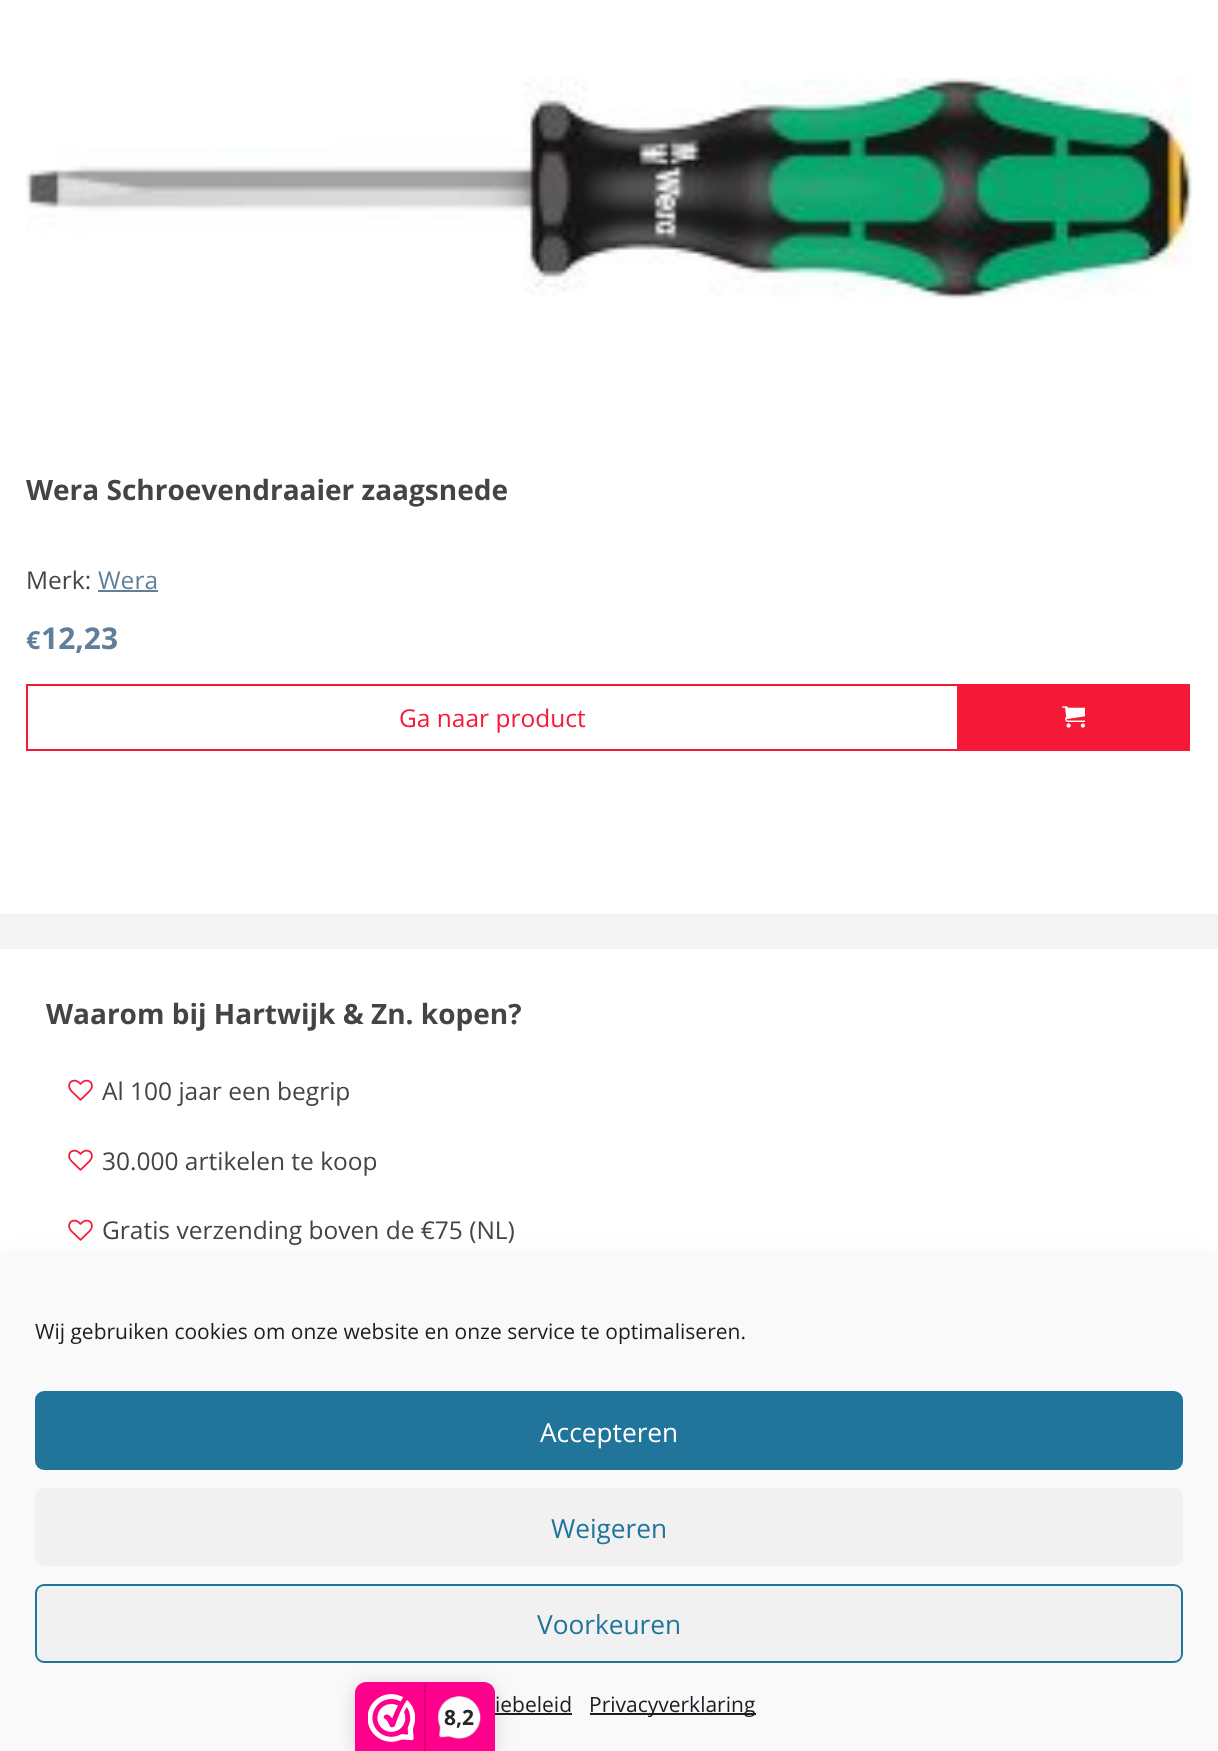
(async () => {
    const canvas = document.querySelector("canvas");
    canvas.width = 1218;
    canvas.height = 1751;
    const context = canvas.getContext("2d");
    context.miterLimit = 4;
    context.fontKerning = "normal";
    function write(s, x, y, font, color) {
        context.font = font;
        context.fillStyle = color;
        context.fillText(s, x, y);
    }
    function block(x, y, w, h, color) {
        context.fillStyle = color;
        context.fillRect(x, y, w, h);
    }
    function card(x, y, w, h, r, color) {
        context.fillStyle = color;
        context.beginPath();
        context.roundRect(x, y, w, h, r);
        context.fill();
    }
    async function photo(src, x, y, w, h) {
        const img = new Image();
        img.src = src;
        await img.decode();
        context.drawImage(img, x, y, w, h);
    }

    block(0, 0, 1218, 1751, "rgb(255, 255, 255)");
    await photo("media/1.png", 26, 78, 1166, 221);
    write("Wera Schroevendraaier zaagsnede", 26, 500, "bold 28px Open Sans", "rgb(68, 68, 68)");
    write("Merk:", 26, 589, "24.5px Open Sans", "rgb(68, 68, 68)");
    write("Wera", 98, 589, "24.5px Open Sans", "rgb(98, 127, 154)");
    block(98, 590, 60, 2, "rgb(98, 127, 154)");
    write("€", 26, 649, "bold 25px Open Sans", "rgb(98, 127, 154)");
    write("12,23", 41, 649, "bold 30px Open Sans", "rgb(98, 127, 154)");
    context.strokeStyle = "rgb(245, 24, 55)";
    context.lineWidth = 2;
    context.strokeRect(27, 685, 931, 65);
    write("Ga naar product", 399, 727, "24.5px Open Sans", "rgb(245, 24, 55)");
    block(959, 684, 231, 67, "rgb(245, 24, 55)");
    await photo("media/2.png", 1062, 706, 23, 22);
    block(0, 914, 1218, 35, "rgb(244, 244, 244)");
    write("Waarom bij Hartwijk & Zn. kopen?", 46, 1024, "bold 28px Open Sans", "rgb(68, 68, 68)");
    await photo("media/3.png", 68, 1079, 25, 22);
    write("Al 100 jaar een begrip", 102, 1100, "24.5px Open Sans", "rgb(68, 68, 68)");
    await photo("media/3.png", 68, 1149, 25, 22);
    write("30.000 artikelen te koop", 102, 1170, "24.5px Open Sans", "rgb(68, 68, 68)");
    await photo("media/3.png", 68, 1219, 25, 22);
    write("Gratis verzending boven de €75 (NL)", 102, 1239, "24.5px Open Sans", "rgb(68, 68, 68)");
    context.fillStyle = "rgba(0, 0, 0, 0.19)";
    context.filter = "blur(17.5px)";
    context.beginPath();
    context.rect(0, 1272, 1218, 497);
    context.fill();
    context.filter = "none";
    block(0, 1256, 1218, 495, "rgb(249, 249, 249)");
    write("Wij gebruiken cookies om onze website en onze service te optimaliseren.", 35, 1339, "21px Open Sans", "rgb(25, 30, 35)");
    context.fillStyle = "rgb(33, 117, 155)";
    context.beginPath();
    context.roundRect(36, 1392, 1146, 77, 8);
    context.fill();
    context.strokeStyle = "rgb(33, 117, 155)";
    context.stroke();
    write("Accepteren", 540, 1442, "26.25px Open Sans", "rgb(255, 255, 255)");
    card(35, 1488, 1148, 78, 9, "rgb(241, 241, 241)");
    write("Weigeren", 551, 1538, "26.25px Open Sans", "rgb(33, 117, 155)");
    context.fillStyle = "rgb(241, 241, 241)";
    context.beginPath();
    context.roundRect(36, 1585, 1146, 77, 8);
    context.fill();
    context.stroke();
    write("Voorkeuren", 537, 1634, "26.25px Open Sans", "rgb(33, 117, 155)");
    write("iebeleid", 495, 1712, "21px Open Sans", "rgb(25, 30, 35)");
    block(495, 1713, 77, 2, "rgb(25, 30, 35)");
    block(590, 1713, 166, 2, "rgb(25, 30, 35)");
    write("Privacyverklaring", 589, 1712, "21px Open Sans", "rgb(25, 30, 35)");
    context.fillStyle = "rgba(0, 0, 0, 0.15)";
    context.filter = "blur(9px)";
    context.beginPath();
    context.roundRect(355, 1685, 140, 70, 11);
    context.fill();
    context.filter = "none";
    context.fillStyle = "rgb(254, 0, 140)";
    context.beginPath();
    context.moveTo(366, 1682);
    context.lineTo(484, 1682);
    context.bezierCurveTo(490, 1682, 495, 1687, 495, 1693);
    context.lineTo(495, 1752);
    context.lineTo(355, 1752);
    context.lineTo(355, 1693);
    context.bezierCurveTo(355, 1687, 360, 1682, 366, 1682);
    context.closePath();
    context.fill();
    await photo("media/4.png", 368, 1694, 47, 48);
    block(424, 1684, 2, 67, "rgb(216, 0, 119)");
    await photo("media/5.png", 437, 1696, 45, 44);
    write("8,2", 444, 1725, "bold 21px Open Sans", "rgb(39, 38, 38)");
})();
